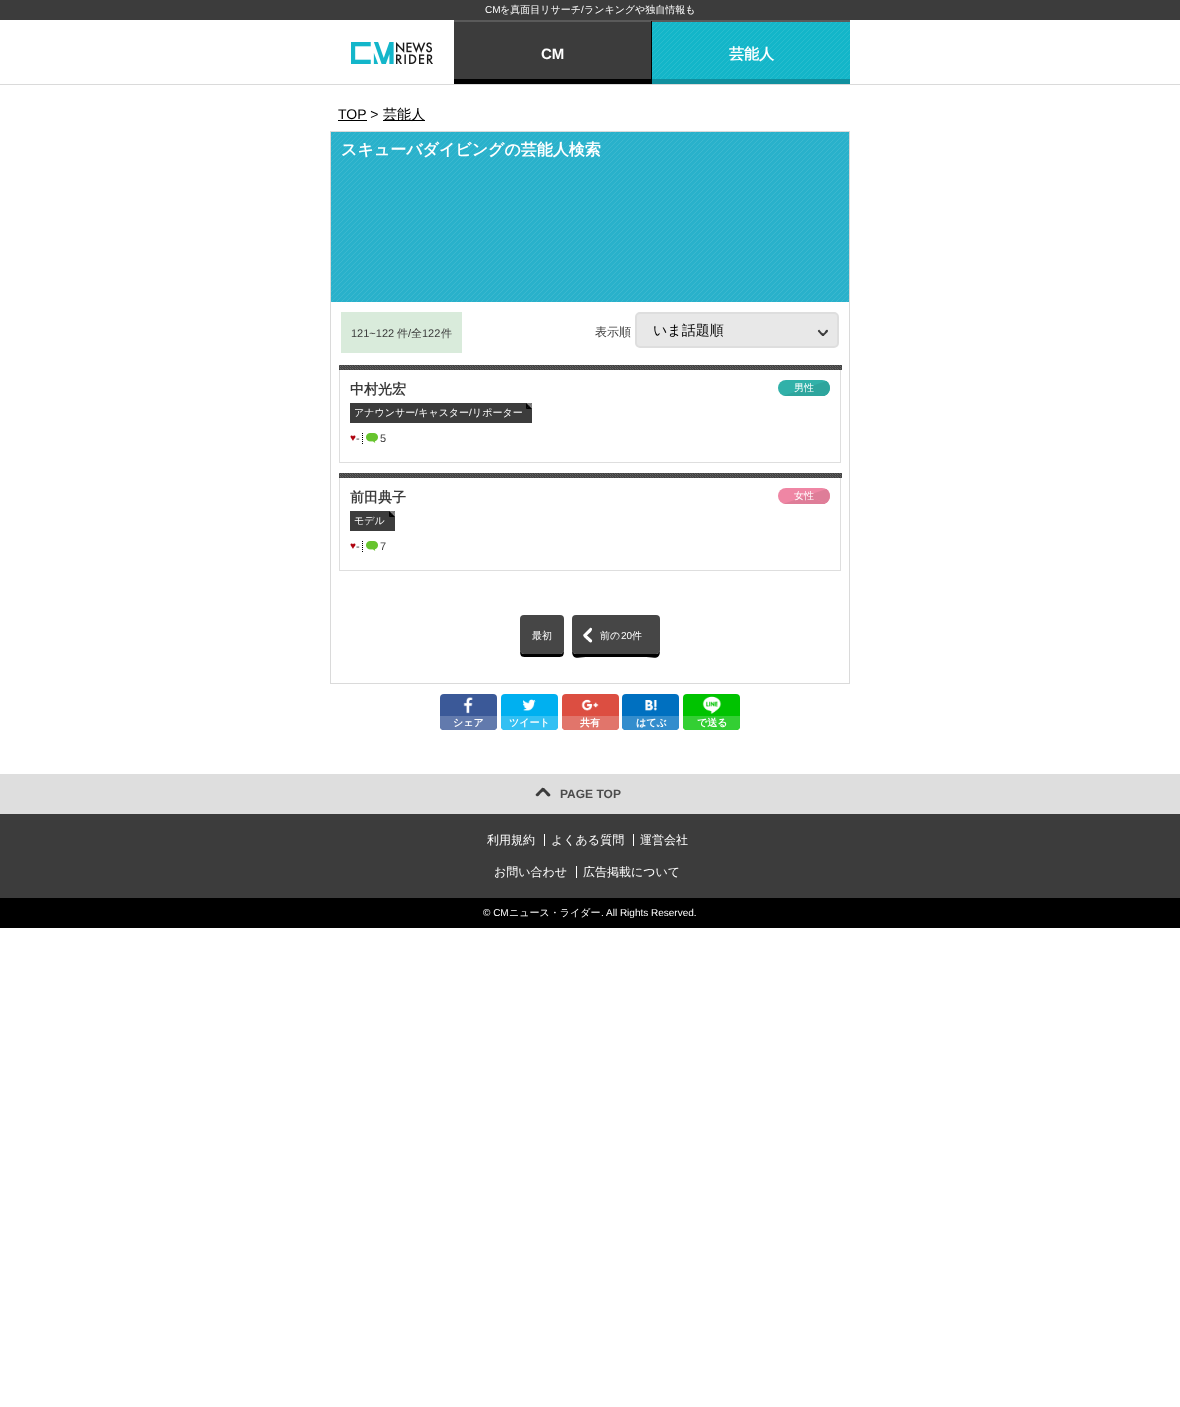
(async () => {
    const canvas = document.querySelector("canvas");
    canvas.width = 1180;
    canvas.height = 1407;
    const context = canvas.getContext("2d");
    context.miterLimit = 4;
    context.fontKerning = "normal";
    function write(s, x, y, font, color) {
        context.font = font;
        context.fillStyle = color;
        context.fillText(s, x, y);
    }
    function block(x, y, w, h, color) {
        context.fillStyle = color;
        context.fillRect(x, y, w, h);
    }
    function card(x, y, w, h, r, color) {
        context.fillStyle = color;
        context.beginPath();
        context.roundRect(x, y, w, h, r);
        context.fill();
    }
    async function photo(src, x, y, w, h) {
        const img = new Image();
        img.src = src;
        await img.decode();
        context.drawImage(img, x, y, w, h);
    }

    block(0, 0, 1180, 1407, "rgb(255, 255, 255)");
    block(0, 84, 1180, 1, "rgb(218, 218, 218)");
    block(0, 0, 1180, 20, "rgb(60, 60, 60)");
    write("を真面目リサーチ ランキングや独自情報も", 500, 13, "500 10px WenQuanYi Zen Hei", "rgb(255, 255, 255)");
    write("CM", 485, 13, "10px Liberation Sans", "rgb(255, 255, 255)");
    write("/", 581, 13, "10px Liberation Sans", "rgb(255, 255, 255)");
    await photo("media/1.png", 351, 42, 82, 22);
    block(454, 20, 396, 1, "rgb(90, 90, 90)");
    block(454, 22, 197, 57, "rgb(60, 60, 60)");
    block(454, 21, 396, 1, "rgb(90, 90, 90)");
    block(651, 21, 1, 63, "rgb(0, 0, 0)");
    write("CM", 541, 59, "bold 15px Liberation Sans", "rgb(255, 255, 255)");
    block(454, 79, 197, 5, "rgb(0, 0, 0)");
    block(652, 22, 198, 57, "rgb(19, 182, 201)");
    await photo("media/2.png", 652, 22, 198, 57);
    write("芸能人", 729, 59, "bold 15px WenQuanYi Zen Hei", "rgb(255, 255, 255)");
    block(652, 79, 198, 5, "rgb(16, 144, 159)");
    write("TOP >", 338, 119, "14px Liberation Sans", "rgb(0, 0, 0)");
    block(338, 120, 29, 1, "rgb(0, 0, 0)");
    block(383, 120, 42, 1, "rgb(0, 0, 0)");
    write("芸能人", 383, 119, "500 14px WenQuanYi Zen Hei", "rgb(0, 0, 0)");
    context.strokeStyle = "rgb(218, 218, 218)";
    context.strokeRect(330.5, 131.5, 519, 552);
    block(331, 132, 518, 170, "rgb(41, 177, 203)");
    await photo("media/3.png", 331, 132, 518, 170);
    write("スキューバダイビングの芸能人検索", 341, 155, "bold 16px WenQuanYi Zen Hei", "rgb(255, 255, 255)");
    block(341, 312, 121, 41, "rgb(217, 235, 219)");
    write("121~122", 351, 337, "11px Liberation Sans", "rgb(60, 60, 60)");
    write("件", 397, 337, "500 11px WenQuanYi Zen Hei", "rgb(60, 60, 60)");
    write("/", 408, 337, "11px Liberation Sans", "rgb(60, 60, 60)");
    write("全", 411, 337, "500 11px WenQuanYi Zen Hei", "rgb(60, 60, 60)");
    write("122", 422, 337, "11px Liberation Sans", "rgb(60, 60, 60)");
    write("件", 441, 337, "500 11px WenQuanYi Zen Hei", "rgb(60, 60, 60)");
    write("表示順", 595, 336, "500 12px WenQuanYi Zen Hei", "rgb(60, 60, 60)");
    context.fillStyle = "rgb(232, 232, 232)";
    context.beginPath();
    context.roundRect(636, 313, 202, 34, 4);
    context.fill();
    context.strokeStyle = "rgb(222, 222, 222)";
    context.lineWidth = 2;
    context.stroke();
    write("いま話題順", 653, 335, "500 14px WenQuanYi Zen Hei", "rgb(0, 0, 0)");
    context.fillStyle = "rgb(60, 60, 60)";
    context.beginPath();
    context.moveTo(819.5, 330);
    context.lineTo(821.5, 332.5);
    context.bezierCurveTo(822.5, 333, 825, 334.5, 824, 335.5);
    context.bezierCurveTo(823, 337.5, 820, 333.5, 819.5, 333);
    context.lineTo(818, 331.5);
    context.bezierCurveTo(817.5, 330.5, 819, 329.5, 819.5, 330);
    context.closePath();
    context.fill();
    context.beginPath();
    context.moveTo(822, 334.5);
    context.lineTo(824.5, 332.5);
    context.bezierCurveTo(825, 331.5, 826.5, 329, 827.5, 330);
    context.bezierCurveTo(829.5, 331, 825.5, 334, 825, 334.5);
    context.lineTo(823.5, 336);
    context.bezierCurveTo(822.5, 336.5, 821.5, 335, 822, 334.5);
    context.closePath();
    context.fill();
    block(840, 365, 1, 98, "rgb(222, 222, 222)");
    block(339, 462, 502, 1, "rgb(222, 222, 222)");
    block(339, 365, 1, 98, "rgb(222, 222, 222)");
    block(339, 365, 503, 5, "rgb(60, 60, 60)");
    await photo("media/4.png", 339, 365, 503, 5);
    write("中村光宏", 350, 394, "bold 14px WenQuanYi Zen Hei", "rgb(60, 60, 60)");
    card(778, 380, 52, 16, 8, "rgb(49, 177, 169)");
    context.fillStyle = "rgb(46, 165, 157)";
    context.beginPath();
    context.moveTo(826.5, 381);
    context.bezierCurveTo(831, 384.5, 831, 391.5, 826.5, 395);
    context.lineTo(806, 388);
    context.closePath();
    context.fill();
    context.beginPath();
    context.moveTo(786, 396);
    context.lineTo(822, 396);
    context.bezierCurveTo(824, 396, 825, 396, 826, 395);
    context.lineTo(806, 388);
    context.lineTo(783, 396);
    context.closePath();
    context.fill();
    write("男性", 794, 391, "500 10px WenQuanYi Zen Hei", "rgb(255, 255, 255)");
    block(350, 403, 182, 20, "rgb(60, 60, 60)");
    context.fillStyle = "rgb(130, 130, 130)";
    context.beginPath();
    context.moveTo(526, 403);
    context.lineTo(532, 403);
    context.lineTo(529, 406);
    context.closePath();
    context.fill();
    context.beginPath();
    context.moveTo(532, 403);
    context.lineTo(532, 409);
    context.lineTo(529, 406);
    context.closePath();
    context.fill();
    context.fillStyle = "rgb(0, 0, 0)";
    context.beginPath();
    context.moveTo(532, 409);
    context.lineTo(526, 409);
    context.lineTo(529, 406);
    context.closePath();
    context.fill();
    context.beginPath();
    context.moveTo(526, 409);
    context.lineTo(526, 403);
    context.lineTo(529, 406);
    context.closePath();
    context.fill();
    write("アナウンサー キャスター リポーター", 354, 416, "500 10px WenQuanYi Zen Hei", "rgb(255, 255, 255)");
    write("/", 415, 416, "10px Liberation Sans", "rgb(255, 255, 255)");
    write("/", 469, 416, "10px Liberation Sans", "rgb(255, 255, 255)");
    write("♥", 350, 441, "10px Liberation Sans", "rgb(175, 4, 16)");
    write("-", 356, 442, "11px Liberation Sans", "rgb(60, 60, 60)");
    context.beginPath();
    context.moveTo(362.5, 433);
    context.lineTo(362.5, 444);
    context.strokeStyle = "rgb(0, 0, 0)";
    context.lineWidth = 1;
    context.setLineDash([1, 1]);
    context.stroke();
    await photo("media/5.png", 366, 433, 12, 10);
    write("5", 380, 442, "11px Liberation Sans", "rgb(60, 60, 60)");
    block(840, 473, 1, 98, "rgb(222, 222, 222)");
    block(339, 570, 502, 1, "rgb(222, 222, 222)");
    block(339, 473, 1, 98, "rgb(222, 222, 222)");
    block(339, 473, 503, 5, "rgb(60, 60, 60)");
    await photo("media/4.png", 339, 473, 503, 5);
    write("前田典子", 350, 502, "bold 14px WenQuanYi Zen Hei", "rgb(60, 60, 60)");
    card(778, 488, 52, 16, 8, "rgb(239, 134, 164)");
    context.fillStyle = "rgb(222, 125, 152)";
    context.beginPath();
    context.moveTo(826.5, 489);
    context.bezierCurveTo(831, 492.5, 831, 499.5, 826.5, 503);
    context.lineTo(806, 496);
    context.closePath();
    context.fill();
    context.beginPath();
    context.moveTo(786, 504);
    context.lineTo(822, 504);
    context.bezierCurveTo(824, 504, 825, 504, 826, 503);
    context.lineTo(806, 496);
    context.lineTo(783, 504);
    context.closePath();
    context.fill();
    write("女性", 794, 499, "500 10px WenQuanYi Zen Hei", "rgb(255, 255, 255)");
    block(350, 511, 45, 20, "rgb(60, 60, 60)");
    context.fillStyle = "rgb(130, 130, 130)";
    context.beginPath();
    context.moveTo(389, 511);
    context.lineTo(395, 511);
    context.lineTo(392, 514);
    context.closePath();
    context.fill();
    context.beginPath();
    context.moveTo(395, 511);
    context.lineTo(395, 517);
    context.lineTo(392, 514);
    context.closePath();
    context.fill();
    context.fillStyle = "rgb(0, 0, 0)";
    context.beginPath();
    context.moveTo(395, 517);
    context.lineTo(389, 517);
    context.lineTo(392, 514);
    context.closePath();
    context.fill();
    context.beginPath();
    context.moveTo(389, 517);
    context.lineTo(389, 511);
    context.lineTo(392, 514);
    context.closePath();
    context.fill();
    write("モデル", 354, 524, "500 10px WenQuanYi Zen Hei", "rgb(255, 255, 255)");
    write("♥", 350, 549, "10px Liberation Sans", "rgb(175, 4, 16)");
    write("-", 356, 550, "11px Liberation Sans", "rgb(60, 60, 60)");
    context.beginPath();
    context.moveTo(362.5, 541);
    context.lineTo(362.5, 552);
    context.stroke();
    await photo("media/5.png", 366, 541, 12, 10);
    write("7", 380, 550, "11px Liberation Sans", "rgb(60, 60, 60)");
    context.fillStyle = "rgb(0, 0, 0)";
    context.beginPath();
    context.moveTo(520, 650);
    context.bezierCurveTo(520, 658, 522, 657, 530, 657);
    context.lineTo(554, 657);
    context.bezierCurveTo(562, 657, 564, 658, 564, 650);
    context.bezierCurveTo(564, 652, 562, 654, 560, 654);
    context.lineTo(524, 654);
    context.bezierCurveTo(522, 654, 520, 652, 520, 650);
    context.closePath();
    context.fill();
    card(520, 615, 44, 39, 4, "rgb(70, 70, 70)");
    write("最初", 532, 639, "500 10px WenQuanYi Zen Hei", "rgb(255, 255, 255)");
    context.fillStyle = "rgb(0, 0, 0)";
    context.beginPath();
    context.moveTo(572, 650);
    context.bezierCurveTo(572, 661, 578, 657, 589, 657);
    context.lineTo(643, 657);
    context.bezierCurveTo(654, 657, 660, 661, 660, 650);
    context.bezierCurveTo(660, 652, 658, 654, 656, 654);
    context.lineTo(576, 654);
    context.bezierCurveTo(574, 654, 572, 652, 572, 650);
    context.closePath();
    context.fill();
    card(572, 615, 88, 39, 4, "rgb(70, 70, 70)");
    context.fillStyle = "rgb(255, 255, 255)";
    context.beginPath();
    context.moveTo(586, 634.5);
    context.lineTo(592, 640);
    context.bezierCurveTo(592.5, 641.5, 591.5, 643, 590.5, 642.5);
    context.bezierCurveTo(589, 642, 587.5, 640, 586.5, 639.5);
    context.bezierCurveTo(586, 638.5, 582.5, 636.5, 583.5, 634.5);
    context.lineTo(585, 634);
    context.closePath();
    context.fill();
    context.beginPath();
    context.moveTo(584, 634);
    context.lineTo(590, 628);
    context.bezierCurveTo(591, 627.5, 592.5, 628.5, 592, 629.5);
    context.bezierCurveTo(592, 631, 590, 632.5, 589, 633.5);
    context.bezierCurveTo(588, 634, 586, 637.5, 584, 636.5);
    context.lineTo(583.5, 635);
    context.closePath();
    context.fill();
    write("前の", 600, 639, "500 10px WenQuanYi Zen Hei", "rgb(255, 255, 255)");
    write("20", 621, 639, "10px Liberation Sans", "rgb(255, 255, 255)");
    write("件", 632, 639, "500 10px WenQuanYi Zen Hei", "rgb(255, 255, 255)");
    card(440, 694, 57, 36, 4, "rgb(59, 89, 152)");
    await photo("media/6.png", 463, 697, 10, 17);
    context.fillStyle = "rgb(98, 122, 173)";
    context.beginPath();
    context.roundRect(440, 716, 57, 14, [0, 0, 4, 4]);
    context.fill();
    write("シェア", 453, 726, "bold 10px WenQuanYi Zen Hei", "rgb(255, 255, 255)");
    card(501, 694, 57, 36, 4, "rgb(0, 176, 240)");
    await photo("media/7.png", 523, 699, 13, 12);
    context.fillStyle = "rgb(51, 192, 243)";
    context.beginPath();
    context.roundRect(501, 716, 57, 14, [0, 0, 4, 4]);
    context.fill();
    write("ツイート", 509, 726, "bold 10px WenQuanYi Zen Hei", "rgb(255, 255, 255)");
    card(562, 694, 57, 36, 4, "rgb(220, 78, 65)");
    await photo("media/8.png", 581, 699, 18, 12);
    context.fillStyle = "rgb(225, 117, 107)";
    context.beginPath();
    context.roundRect(562, 716, 57, 14, [0, 0, 4, 4]);
    context.fill();
    write("共有", 580, 726, "bold 10px WenQuanYi Zen Hei", "rgb(255, 255, 255)");
    card(622, 694, 57, 36, 4, "rgb(0, 112, 192)");
    await photo("media/9.png", 645, 700, 12, 11);
    context.fillStyle = "rgb(51, 141, 205)";
    context.beginPath();
    context.roundRect(622, 716, 57, 14, [0, 0, 4, 4]);
    context.fill();
    write("はてぶ", 636, 726, "bold 10px WenQuanYi Zen Hei", "rgb(255, 255, 255)");
    card(683, 694, 57, 36, 4, "rgb(0, 195, 0)");
    await photo("media/10.png", 702, 696, 20, 18);
    context.fillStyle = "rgb(51, 207, 51)";
    context.beginPath();
    context.roundRect(683, 716, 57, 14, [0, 0, 4, 4]);
    context.fill();
    write("で送る", 697, 726, "bold 10px WenQuanYi Zen Hei", "rgb(255, 255, 255)");
    block(0, 774, 1180, 40, "rgb(222, 222, 222)");
    context.fillStyle = "rgb(60, 60, 60)";
    context.beginPath();
    context.moveTo(536, 794);
    context.lineTo(542, 788);
    context.bezierCurveTo(543, 787.5, 544.5, 788.5, 544.5, 789.5);
    context.bezierCurveTo(544, 791, 542, 792, 541, 793);
    context.bezierCurveTo(540, 794, 538, 797.5, 536.5, 796);
    context.lineTo(535.5, 795);
    context.closePath();
    context.fill();
    context.beginPath();
    context.moveTo(544, 788);
    context.lineTo(550, 794);
    context.bezierCurveTo(551, 795, 550, 796.5, 548.5, 796.5);
    context.bezierCurveTo(547, 796, 546, 794, 545, 793);
    context.bezierCurveTo(544, 792, 540.5, 790, 542, 788.5);
    context.lineTo(543, 788);
    context.closePath();
    context.fill();
    write("PAGE TOP", 560, 798, "bold 12px Liberation Sans", "rgb(76, 76, 76)");
    block(0, 814, 1180, 84, "rgb(60, 60, 60)");
    write("利用規約", 487, 844, "500 12px WenQuanYi Zen Hei", "rgb(255, 255, 255)");
    block(544, 834, 1, 12, "rgb(255, 255, 255)");
    write("よくある質問", 551, 844, "500 12px WenQuanYi Zen Hei", "rgb(255, 255, 255)");
    block(633, 834, 1, 12, "rgb(255, 255, 255)");
    write("運営会社", 640, 844, "500 12px WenQuanYi Zen Hei", "rgb(255, 255, 255)");
    write("お問い合わせ", 494, 876, "500 12px WenQuanYi Zen Hei", "rgb(255, 255, 255)");
    block(576, 866, 1, 12, "rgb(255, 255, 255)");
    write("広告掲載について", 583, 876, "500 12px WenQuanYi Zen Hei", "rgb(255, 255, 255)");
    block(0, 898, 1180, 30, "rgb(0, 0, 0)");
    write("© CM", 483, 916, "10px Liberation Sans", "rgb(255, 255, 255)");
    write("ニュース・ライダー", 509, 916, "500 10px WenQuanYi Zen Hei", "rgb(255, 255, 255)");
    write(". All Rights Reserved.", 601, 916, "10px Liberation Sans", "rgb(255, 255, 255)");
})();
